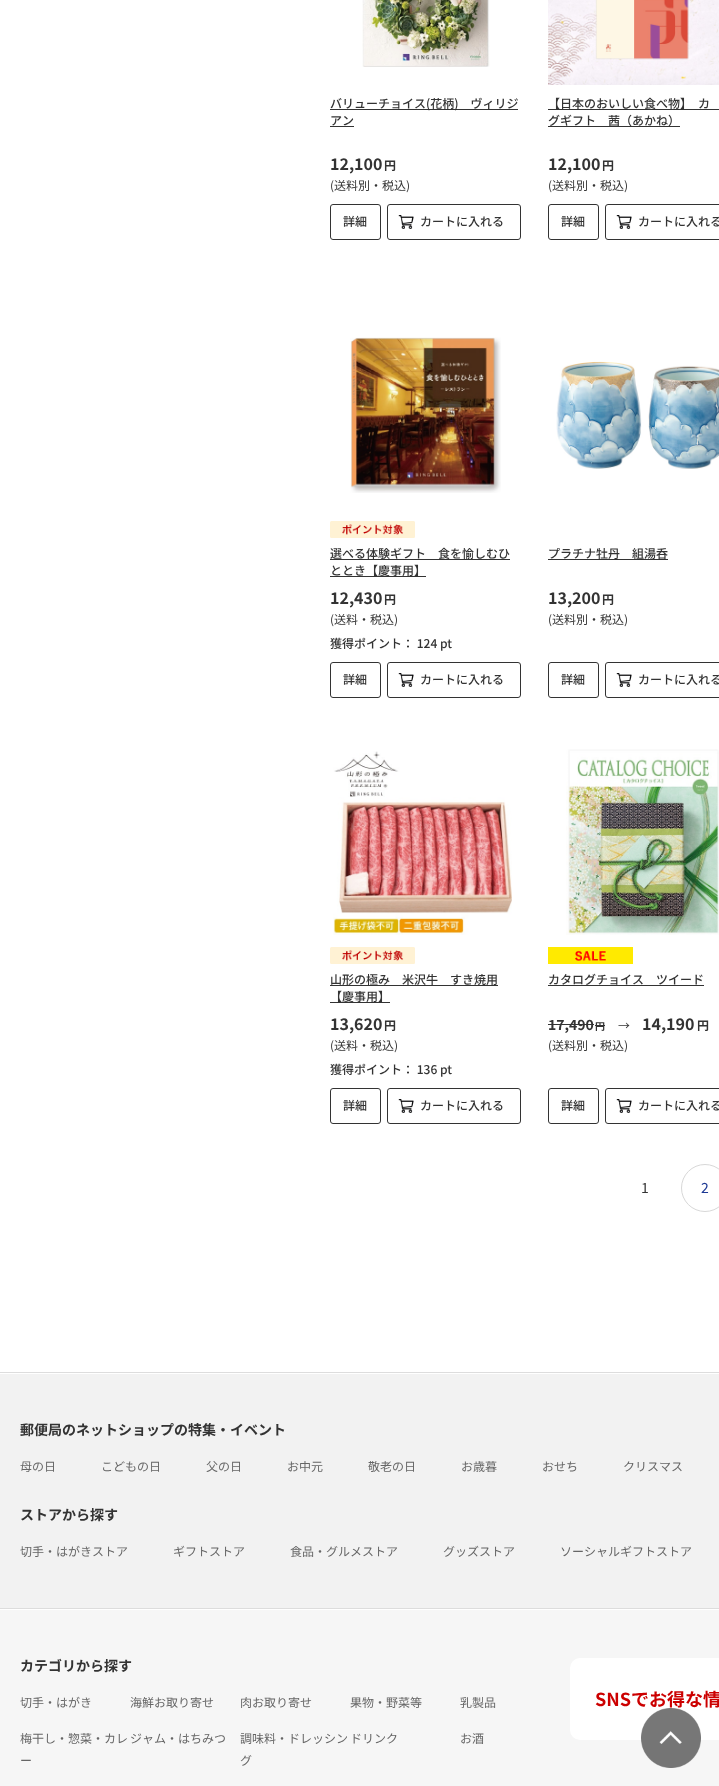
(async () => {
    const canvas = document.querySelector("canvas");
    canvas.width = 719;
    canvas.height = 1786;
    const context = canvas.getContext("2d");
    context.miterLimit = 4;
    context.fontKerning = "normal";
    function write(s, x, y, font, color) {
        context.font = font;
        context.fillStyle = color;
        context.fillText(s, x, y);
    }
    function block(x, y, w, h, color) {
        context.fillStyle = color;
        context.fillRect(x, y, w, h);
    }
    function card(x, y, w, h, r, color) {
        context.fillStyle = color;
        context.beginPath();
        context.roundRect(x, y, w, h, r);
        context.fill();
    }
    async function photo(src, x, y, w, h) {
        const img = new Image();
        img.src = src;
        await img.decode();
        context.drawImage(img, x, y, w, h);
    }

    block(0, 0, 719, 1786, "rgb(255, 255, 255)");
    await photo("media/1.png", 362, 0, 128, 67);
    block(330, 109, 188, 1, "rgb(51, 51, 51)");
    write("バリューチョイス(花柄)　ヴィリジ", 330, 108, "500 12px Noto Sans JP", "rgb(51, 51, 51)");
    write("アン", 330, 125, "500 12px Noto Sans JP", "rgb(51, 51, 51)");
    block(330, 126, 24, 1, "rgb(51, 51, 51)");
    write("12,100", 330, 170, "bold 16px Noto Sans JP", "rgb(51, 51, 51)");
    write("円", 384, 170, "bold 12px Noto Sans JP", "rgb(51, 51, 51)");
    write("(送料別・税込)", 330, 190, "12px Noto Sans JP", "rgb(51, 51, 51)");
    context.beginPath();
    context.roundRect(330.5, 204.5, 50, 35, 2.5);
    context.strokeStyle = "rgb(51, 51, 51)";
    context.stroke();
    write("詳細", 343, 226, "500 12px Noto Sans JP", "rgb(51, 51, 51)");
    await photo("media/2.png", 398, 215, 16, 14);
    context.beginPath();
    context.roundRect(387.5, 204.5, 133, 35, 2.5);
    context.stroke();
    write("カートに入れる", 420, 226, "500 12px Noto Sans JP", "rgb(51, 51, 51)");
    await photo("media/3.png", 548, 0, 171, 85);
    block(548, 109, 171, 1, "rgb(51, 51, 51)");
    write("【日本のおいしい食べ物】　カ", 548, 108, "500 12px Noto Sans JP", "rgb(51, 51, 51)");
    block(548, 126, 132, 1, "rgb(51, 51, 51)");
    write("グギフト　茜（あかね）", 548, 125, "500 12px Noto Sans JP", "rgb(51, 51, 51)");
    write("12,100", 548, 170, "bold 16px Noto Sans JP", "rgb(51, 51, 51)");
    write("円", 602, 170, "bold 12px Noto Sans JP", "rgb(51, 51, 51)");
    write("(送料別・税込)", 548, 190, "12px Noto Sans JP", "rgb(51, 51, 51)");
    context.beginPath();
    context.roundRect(548.5, 204.5, 50, 35, 2.5);
    context.stroke();
    write("詳細", 561, 226, "500 12px Noto Sans JP", "rgb(51, 51, 51)");
    await photo("media/2.png", 616, 215, 16, 14);
    context.beginPath();
    context.roundRect(605.5, 204.5, 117, 35, 2.5);
    context.stroke();
    write("カートに入れる", 638, 226, "500 12px Noto Sans JP", "rgb(51, 51, 51)");
    await photo("media/4.png", 350, 337, 151, 156);
    await photo("media/5.png", 330, 521, 85, 17);
    write("選べる体験ギフト　食を愉しむひ", 330, 558, "500 12px Noto Sans JP", "rgb(51, 51, 51)");
    block(330, 559, 180, 1, "rgb(51, 51, 51)");
    block(330, 576, 96, 1, "rgb(51, 51, 51)");
    write("ととき【慶事用】", 330, 575, "500 12px Noto Sans JP", "rgb(51, 51, 51)");
    write("12,430", 330, 604, "bold 16px Noto Sans JP", "rgb(51, 51, 51)");
    write("円", 384, 604, "bold 12px Noto Sans JP", "rgb(51, 51, 51)");
    write("(送料・税込)", 330, 624, "12px Noto Sans JP", "rgb(51, 51, 51)");
    write("獲得ポイント： 124 pt", 330, 648, "500 12px Noto Sans JP", "rgb(51, 51, 51)");
    context.beginPath();
    context.roundRect(330.5, 662.5, 50, 35, 2.5);
    context.stroke();
    write("詳細", 343, 684, "500 12px Noto Sans JP", "rgb(51, 51, 51)");
    await photo("media/2.png", 398, 673, 16, 14);
    context.beginPath();
    context.roundRect(387.5, 662.5, 133, 35, 2.5);
    context.stroke();
    write("カートに入れる", 420, 684, "500 12px Noto Sans JP", "rgb(51, 51, 51)");
    await photo("media/6.png", 556, 361, 163, 108);
    write("プラチナ牡丹　組湯呑", 548, 558, "500 12px Noto Sans JP", "rgb(51, 51, 51)");
    block(548, 559, 120, 1, "rgb(51, 51, 51)");
    write("13,200", 548, 604, "bold 16px Noto Sans JP", "rgb(51, 51, 51)");
    write("円", 602, 604, "bold 12px Noto Sans JP", "rgb(51, 51, 51)");
    write("(送料別・税込)", 548, 624, "12px Noto Sans JP", "rgb(51, 51, 51)");
    context.beginPath();
    context.roundRect(548.5, 662.5, 50, 35, 2.5);
    context.stroke();
    write("詳細", 561, 684, "500 12px Noto Sans JP", "rgb(51, 51, 51)");
    await photo("media/2.png", 616, 673, 16, 14);
    context.beginPath();
    context.roundRect(605.5, 662.5, 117, 35, 2.5);
    context.stroke();
    write("カートに入れる", 638, 684, "500 12px Noto Sans JP", "rgb(51, 51, 51)");
    await photo("media/7.png", 333, 751, 179, 184);
    await photo("media/5.png", 330, 947, 85, 17);
    block(330, 985, 168, 1, "rgb(51, 51, 51)");
    write("山形の極み　米沢牛　すき焼用", 330, 984, "500 12px Noto Sans JP", "rgb(51, 51, 51)");
    block(330, 1002, 60, 1, "rgb(51, 51, 51)");
    write("【慶事用】", 330, 1001, "500 12px Noto Sans JP", "rgb(51, 51, 51)");
    write("13,620", 330, 1030, "bold 16px Noto Sans JP", "rgb(51, 51, 51)");
    write("円", 384, 1030, "bold 12px Noto Sans JP", "rgb(51, 51, 51)");
    write("(送料・税込)", 330, 1050, "12px Noto Sans JP", "rgb(51, 51, 51)");
    write("獲得ポイント： 136 pt", 330, 1074, "500 12px Noto Sans JP", "rgb(51, 51, 51)");
    context.beginPath();
    context.roundRect(330.5, 1088.5, 50, 35, 2.5);
    context.stroke();
    write("詳細", 343, 1110, "500 12px Noto Sans JP", "rgb(51, 51, 51)");
    await photo("media/2.png", 398, 1099, 16, 14);
    context.beginPath();
    context.roundRect(387.5, 1088.5, 133, 35, 2.5);
    context.stroke();
    write("カートに入れる", 420, 1110, "500 12px Noto Sans JP", "rgb(51, 51, 51)");
    await photo("media/8.png", 566, 749, 153, 186);
    await photo("media/9.png", 548, 947, 85, 17);
    write("カタログチョイス　ツイード", 548, 984, "500 12px Noto Sans JP", "rgb(51, 51, 51)");
    block(548, 985, 156, 1, "rgb(51, 51, 51)");
    write("17,490", 548, 1030, "bold 14px Noto Sans JP", "rgb(51, 51, 51)");
    block(548, 1024, 46, 1, "rgb(51, 51, 51)");
    block(595, 1025, 10, 1, "rgb(51, 51, 51)");
    write("円", 595, 1030, "bold 10px Noto Sans JP", "rgb(51, 51, 51)");
    write("→", 618, 1030, "12px Noto Sans JP", "rgb(51, 51, 51)");
    write("14,190", 642, 1030, "bold 16px Noto Sans JP", "rgb(51, 51, 51)");
    write("円", 697, 1030, "bold 12px Noto Sans JP", "rgb(51, 51, 51)");
    write("(送料別・税込)", 548, 1050, "12px Noto Sans JP", "rgb(51, 51, 51)");
    context.beginPath();
    context.roundRect(548.5, 1088.5, 50, 35, 2.5);
    context.stroke();
    write("詳細", 561, 1110, "500 12px Noto Sans JP", "rgb(51, 51, 51)");
    await photo("media/2.png", 616, 1099, 16, 14);
    context.beginPath();
    context.roundRect(605.5, 1088.5, 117, 35, 2.5);
    context.stroke();
    write("カートに入れる", 638, 1110, "500 12px Noto Sans JP", "rgb(51, 51, 51)");
    write("1", 641, 1193, "14px Noto Sans JP", "rgb(51, 51, 51)");
    context.beginPath();
    context.arc(705, 1188, 23.5, 0, Math.PI * 2);
    context.strokeStyle = "rgb(216, 216, 216)";
    context.stroke();
    write("2", 701, 1193, "14px Noto Sans JP", "rgb(29, 57, 148)");
    block(0, 1374, 719, 234, "rgb(242, 242, 242)");
    await photo("media/10.png", 0, 1372, 719, 2);
    write("郵便局のネットショップの特集・イベント", 20, 1435, "bold 14px Noto Sans JP", "rgb(51, 51, 51)");
    write("母の日", 20, 1471, "12px Noto Sans JP", "rgb(102, 102, 102)");
    write("こどもの日", 101, 1471, "12px Noto Sans JP", "rgb(102, 102, 102)");
    write("父の日", 206, 1471, "12px Noto Sans JP", "rgb(102, 102, 102)");
    write("お中元", 287, 1471, "12px Noto Sans JP", "rgb(102, 102, 102)");
    write("敬老の日", 368, 1471, "12px Noto Sans JP", "rgb(102, 102, 102)");
    write("お歳暮", 461, 1471, "12px Noto Sans JP", "rgb(102, 102, 102)");
    write("おせち", 542, 1471, "12px Noto Sans JP", "rgb(102, 102, 102)");
    write("クリスマス", 623, 1471, "12px Noto Sans JP", "rgb(102, 102, 102)");
    write("ストアから探す", 20, 1520, "bold 14px Noto Sans JP", "rgb(51, 51, 51)");
    write("切手・はがきストア", 20, 1556, "12px Noto Sans JP", "rgb(102, 102, 102)");
    write("ギフトストア", 173, 1556, "12px Noto Sans JP", "rgb(102, 102, 102)");
    write("食品・グルメストア", 290, 1556, "12px Noto Sans JP", "rgb(102, 102, 102)");
    write("グッズストア", 443, 1556, "12px Noto Sans JP", "rgb(102, 102, 102)");
    write("ソーシャルギフトストア", 560, 1556, "12px Noto Sans JP", "rgb(102, 102, 102)");
    block(0, 1610, 719, 176, "rgb(246, 246, 246)");
    await photo("media/10.png", 0, 1608, 719, 2);
    write("カテゴリから探す", 20, 1671, "bold 14px Noto Sans JP", "rgb(51, 51, 51)");
    write("切手・はがき", 20, 1707, "12px Noto Sans JP", "rgb(102, 102, 102)");
    write("海鮮お取り寄せ", 130, 1707, "12px Noto Sans JP", "rgb(102, 102, 102)");
    write("肉お取り寄せ", 240, 1707, "12px Noto Sans JP", "rgb(102, 102, 102)");
    write("果物・野菜等", 350, 1707, "12px Noto Sans JP", "rgb(102, 102, 102)");
    write("乳製品", 460, 1707, "12px Noto Sans JP", "rgb(102, 102, 102)");
    write("梅干し・惣菜・カレ", 20, 1743, "12px Noto Sans JP", "rgb(102, 102, 102)");
    write("ー", 20, 1765, "12px Noto Sans JP", "rgb(102, 102, 102)");
    write("ジャム・はちみつ", 130, 1743, "12px Noto Sans JP", "rgb(102, 102, 102)");
    write("調味料・ドレッシン", 240, 1743, "12px Noto Sans JP", "rgb(102, 102, 102)");
    write("グ", 240, 1765, "12px Noto Sans JP", "rgb(102, 102, 102)");
    write("ドリンク", 350, 1743, "12px Noto Sans JP", "rgb(102, 102, 102)");
    write("お酒", 460, 1743, "12px Noto Sans JP", "rgb(102, 102, 102)");
    card(570, 1658, 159, 82, 10, "rgb(255, 255, 255)");
    write("SNSでお得な情", 595, 1706, "bold 18px Noto Sans JP", "rgb(204, 0, 0)");
    await photo("media/11.png", 641, 1708, 60, 60);
})();
